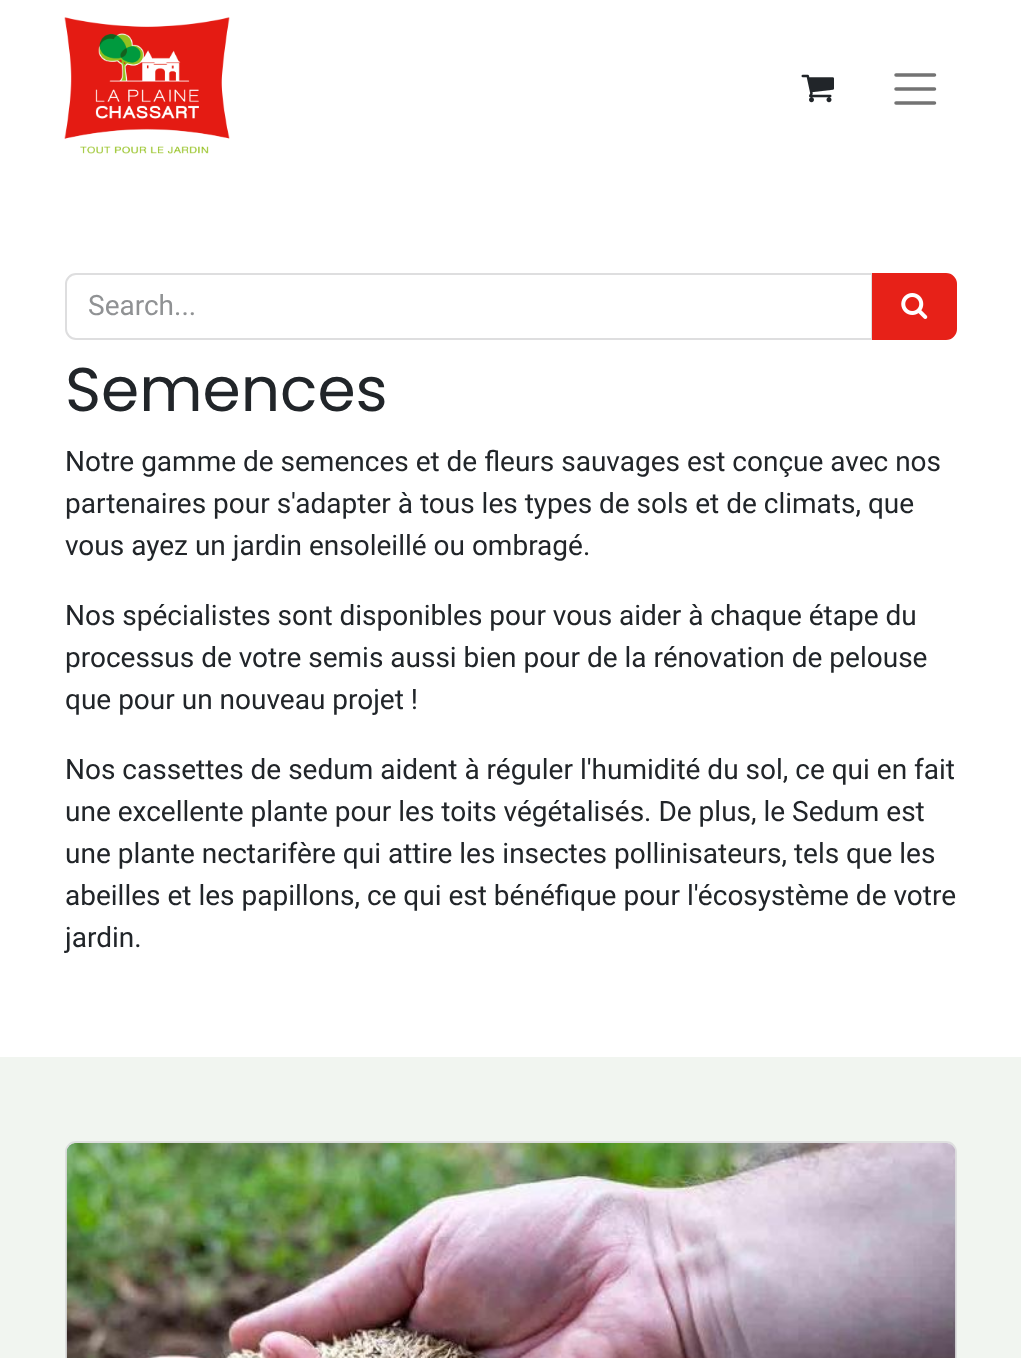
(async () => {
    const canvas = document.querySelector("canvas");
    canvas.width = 1021;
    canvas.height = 1358;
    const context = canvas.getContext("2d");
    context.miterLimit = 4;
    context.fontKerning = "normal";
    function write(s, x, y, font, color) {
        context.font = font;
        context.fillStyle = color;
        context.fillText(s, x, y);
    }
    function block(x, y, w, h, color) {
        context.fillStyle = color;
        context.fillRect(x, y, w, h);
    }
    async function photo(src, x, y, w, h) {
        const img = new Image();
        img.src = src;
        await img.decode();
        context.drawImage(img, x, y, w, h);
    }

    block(0, 0, 1021, 1358, "rgb(255, 255, 255)");
    await photo("media/1.png", 64, 17, 166, 137);
    await photo("media/2.png", 801, 74, 33, 29);
    context.beginPath();
    context.moveTo(896, 75);
    context.lineTo(934.5, 75);
    context.moveTo(896, 89);
    context.lineTo(934.5, 89);
    context.moveTo(896, 103);
    context.lineTo(934.5, 103);
    context.strokeStyle = "rgb(115, 115, 115)";
    context.lineWidth = 3.5;
    context.lineCap = "round";
    context.stroke();
    context.beginPath();
    context.roundRect(66, 274, 806, 65, [10, 0, 0, 10]);
    context.strokeStyle = "rgb(222, 222, 223)";
    context.lineWidth = 2;
    context.stroke();
    write("Search...", 88, 315, "28px Roboto", "rgb(144, 146, 148)");
    context.fillStyle = "rgb(231, 33, 24)";
    context.beginPath();
    context.roundRect(873, 274, 83, 65, [0, 10, 10, 0]);
    context.fill();
    context.strokeStyle = "rgb(231, 33, 24)";
    context.stroke();
    await photo("media/3.png", 901, 293, 27, 26);
    write("Semences", 65, 411, "61.5px Poppins", "rgb(33, 37, 41)");
    write("Notre gamme de semences et de fleurs sauvages est conçue avec nos", 65, 471, "28px Roboto", "rgb(33, 37, 41)");
    write("partenaires pour s'adapter à tous les types de sols et de climats, que", 65, 513, "28px Roboto", "rgb(33, 37, 41)");
    write("vous ayez un jardin ensoleillé ou ombragé.", 65, 555, "28px Roboto", "rgb(33, 37, 41)");
    write("Nos spécialistes sont disponibles pour vous aider à chaque étape du", 65, 625, "28px Roboto", "rgb(33, 37, 41)");
    write("processus de votre semis aussi bien pour de la rénovation de pelouse", 65, 667, "28px Roboto", "rgb(33, 37, 41)");
    write("que pour un nouveau projet !", 65, 709, "28px Roboto", "rgb(33, 37, 41)");
    write("Nos cassettes de sedum aident à réguler l'humidité du sol, ce qui en fait", 65, 779, "28px Roboto", "rgb(33, 37, 41)");
    write("une excellente plante pour les toits végétalisés. De plus, le Sedum est", 65, 821, "28px Roboto", "rgb(33, 37, 41)");
    write("une plante nectarifère qui attire les insectes pollinisateurs, tels que les", 65, 863, "28px Roboto", "rgb(33, 37, 41)");
    write("abeilles et les papillons, ce qui est bénéfique pour l'écosystème de votre", 65, 905, "28px Roboto", "rgb(33, 37, 41)");
    write("jardin.", 65, 947, "28px Roboto", "rgb(33, 37, 41)");
    block(0, 1057, 1021, 301, "rgb(241, 245, 240)");
    context.fillStyle = "rgb(255, 255, 255)";
    context.beginPath();
    context.roundRect(65, 1141, 892, 217, [11, 11, 0, 0]);
    context.fill();
    context.beginPath();
    context.roundRect(66, 1142, 890, 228, 10);
    context.strokeStyle = "rgba(33, 37, 41, 0.15)";
    context.stroke();
    await photo("media/4.png", 66, 1143, 890, 215);
})();
